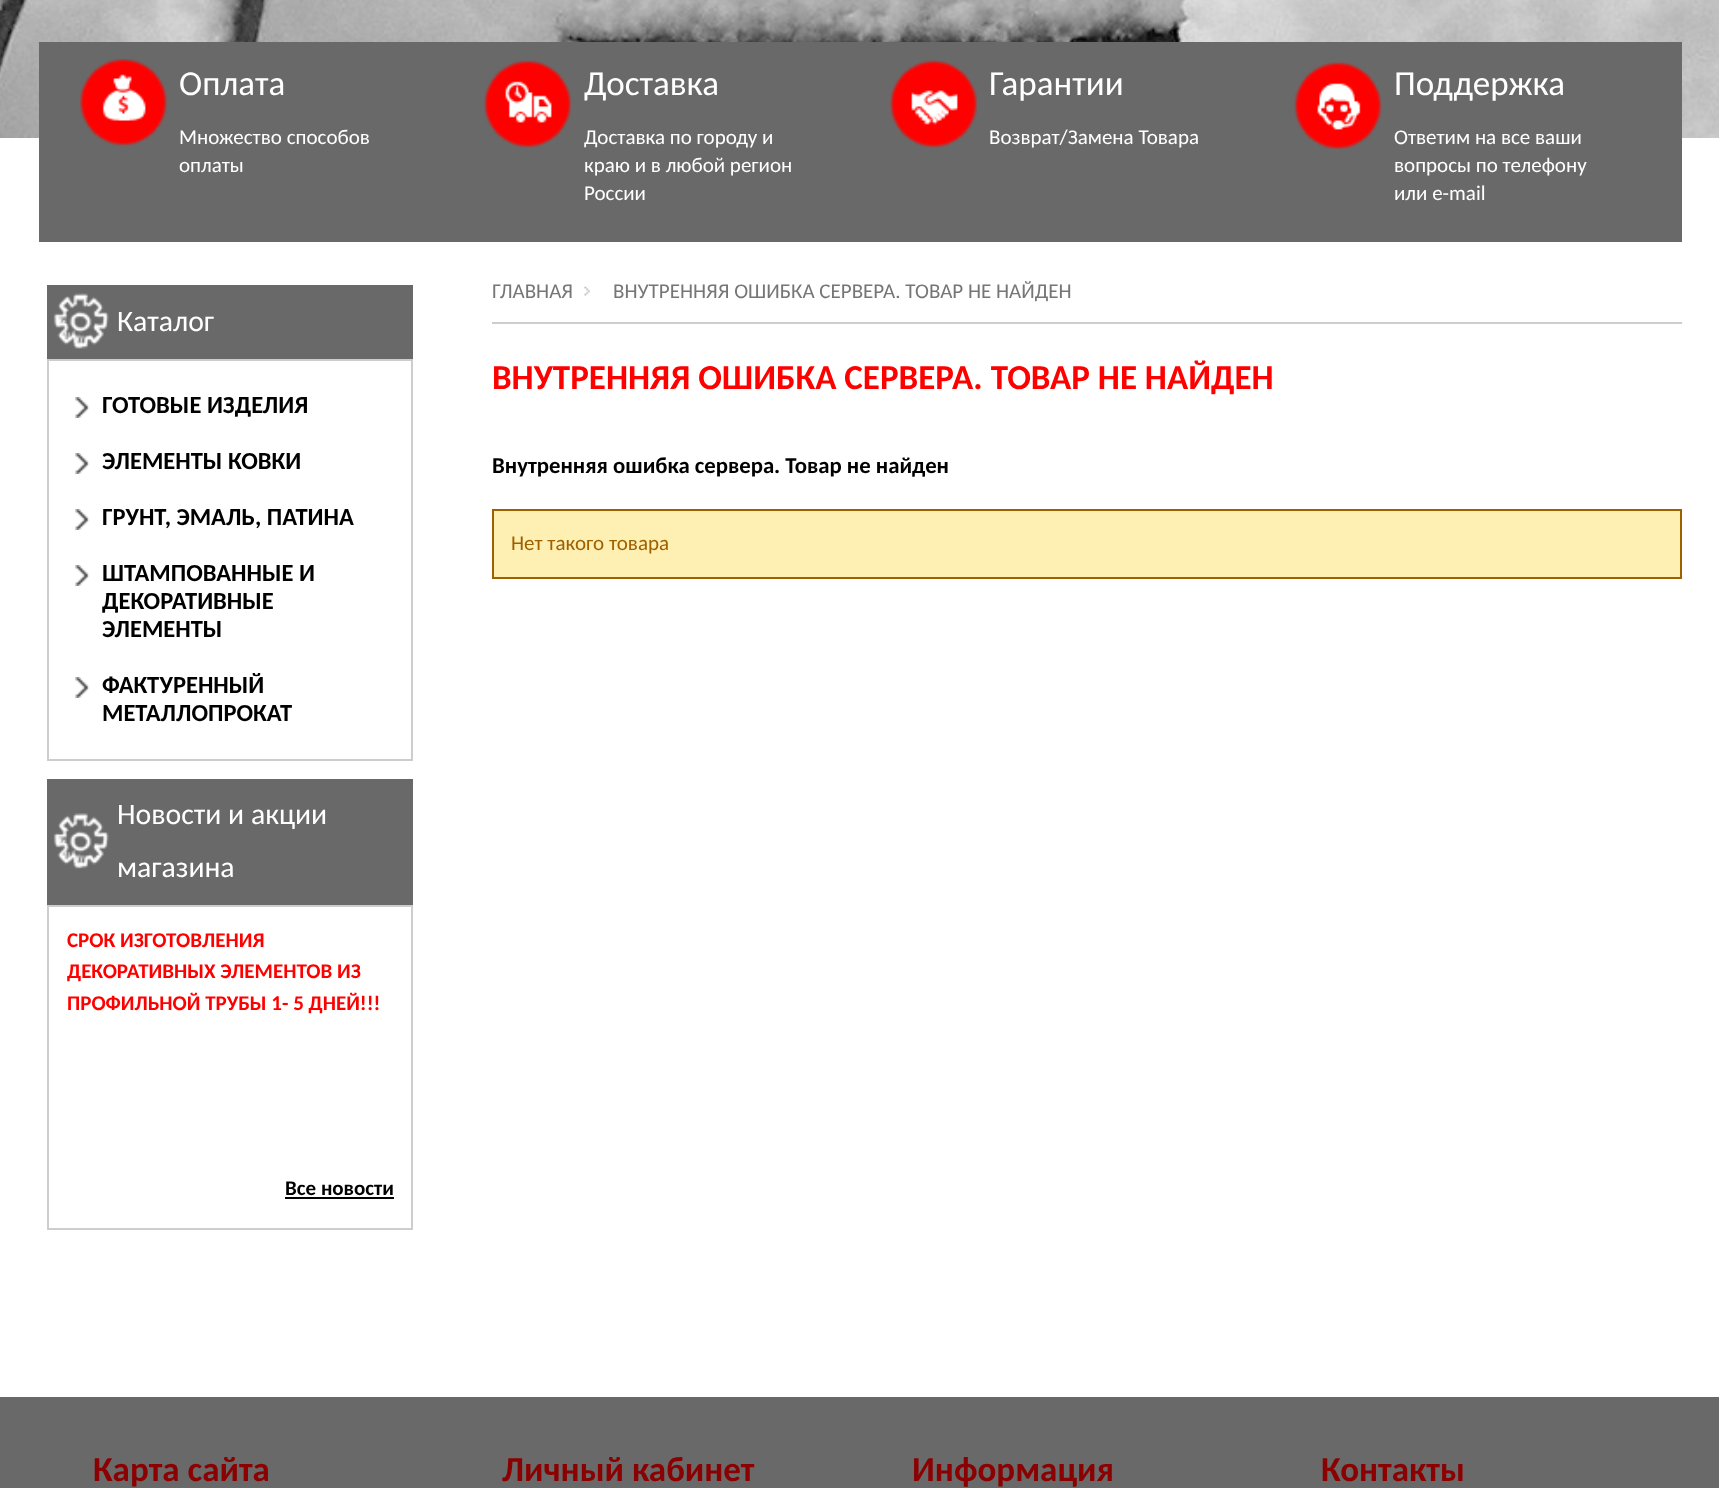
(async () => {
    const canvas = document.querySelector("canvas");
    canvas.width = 1719;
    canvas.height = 1488;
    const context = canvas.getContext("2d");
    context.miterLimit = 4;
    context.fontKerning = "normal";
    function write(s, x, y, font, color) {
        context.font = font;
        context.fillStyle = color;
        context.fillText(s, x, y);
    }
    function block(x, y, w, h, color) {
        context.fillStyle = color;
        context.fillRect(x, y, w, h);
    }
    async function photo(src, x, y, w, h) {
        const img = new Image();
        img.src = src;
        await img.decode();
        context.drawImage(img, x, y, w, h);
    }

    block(0, 0, 1719, 1488, "rgb(255, 255, 255)");
    await photo("media/1.png", 0, 0, 1719, 138);
    block(39, 42, 1643, 200, "rgb(105, 105, 105)");
    await photo("media/2.png", 80, 59, 87, 87);
    write("Оплата", 179, 95, "35px Carlito", "rgb(255, 255, 255)");
    write("Множество способов", 179, 144, "21px Carlito", "rgb(255, 255, 255)");
    write("оплаты", 179, 172, "21px Carlito", "rgb(255, 255, 255)");
    await photo("media/3.png", 484, 60, 87, 88);
    write("Доставка", 584, 95, "35px Carlito", "rgb(255, 255, 255)");
    write("Доставка по городу и", 584, 144, "21px Carlito", "rgb(255, 255, 255)");
    write("краю и в любой регион", 584, 172, "21px Carlito", "rgb(255, 255, 255)");
    write("России", 584, 200, "21px Carlito", "rgb(255, 255, 255)");
    await photo("media/4.png", 890, 60, 87, 88);
    write("Гарантии", 989, 95, "35px Carlito", "rgb(255, 255, 255)");
    write("Возврат/Замена Товара", 989, 144, "21px Carlito", "rgb(255, 255, 255)");
    await photo("media/5.png", 1294, 62, 88, 87);
    write("Поддержка", 1394, 95, "35px Carlito", "rgb(255, 255, 255)");
    write("Ответим на все ваши", 1394, 144, "21px Carlito", "rgb(255, 255, 255)");
    write("вопросы по телефону", 1394, 172, "21px Carlito", "rgb(255, 255, 255)");
    write("или e-mail", 1394, 200, "21px Carlito", "rgb(255, 255, 255)");
    block(47, 285, 366, 74, "rgb(105, 105, 105)");
    await photo("media/6.png", 53, 293, 56, 56);
    write("Каталог", 117, 331, "29.75px Carlito", "rgb(255, 255, 255)");
    context.strokeStyle = "rgb(205, 205, 205)";
    context.lineWidth = 2;
    context.strokeRect(48, 360, 364, 400);
    await photo("media/7.png", 75, 397, 15, 21);
    write("ГОТОВЫЕ ИЗДЕЛИЯ", 102, 413, "bold 24.5px Carlito", "rgb(0, 0, 0)");
    await photo("media/7.png", 75, 453, 15, 21);
    write("ЭЛЕМЕНТЫ КОВКИ", 102, 469, "bold 24.5px Carlito", "rgb(0, 0, 0)");
    await photo("media/7.png", 75, 509, 15, 21);
    write("ГРУНТ, ЭМАЛЬ, ПАТИНА", 102, 525, "bold 24.5px Carlito", "rgb(0, 0, 0)");
    await photo("media/7.png", 75, 565, 15, 21);
    write("ШТАМПОВАННЫЕ И", 102, 581, "bold 24.5px Carlito", "rgb(0, 0, 0)");
    write("ДЕКОРАТИВНЫЕ", 102, 609, "bold 24.5px Carlito", "rgb(0, 0, 0)");
    write("ЭЛЕМЕНТЫ", 102, 637, "bold 24.5px Carlito", "rgb(0, 0, 0)");
    await photo("media/7.png", 75, 677, 15, 21);
    write("ФАКТУРЕННЫЙ", 102, 693, "bold 24.5px Carlito", "rgb(0, 0, 0)");
    write("МЕТАЛЛОПРОКАТ", 102, 721, "bold 24.5px Carlito", "rgb(0, 0, 0)");
    block(47, 779, 366, 126, "rgb(105, 105, 105)");
    await photo("media/8.png", 53, 813, 56, 56);
    write("Новости и акции", 117, 824, "29.75px Carlito", "rgb(255, 255, 255)");
    write("магазина", 117, 877, "29.75px Carlito", "rgb(255, 255, 255)");
    context.strokeRect(48, 906, 364, 323);
    write("СРОК ИЗГОТОВЛЕНИЯ", 67, 947, "bold 21px Carlito", "rgb(255, 0, 0)");
    context.save();
    context.beginPath();
    context.rect(67, 924, 327, 112);
    context.clip();
    write("ДЕКОРАТИВНЫХ ЭЛЕМЕНТОВ ИЗ", 67, 978, "bold 21px Carlito", "rgb(255, 0, 0)");
    context.restore();
    write("ПРОФИЛЬНОЙ ТРУБЫ 1- 5 ДНЕЙ!!!", 67, 1010, "bold 21px Carlito", "rgb(255, 0, 0)");
    write("Все новости", 285, 1195, "bold 21px Carlito", "rgb(0, 0, 0)");
    block(285, 1197, 109, 2, "rgb(0, 0, 0)");
    block(492, 322, 1190, 2, "rgb(205, 205, 205)");
    write("ГЛАВНАЯ", 492, 298, "21px Carlito", "rgb(118, 118, 118)");
    await photo("media/9.png", 584, 286, 6, 10);
    write("ВНУТРЕННЯЯ ОШИБКА СЕРВЕРА. ТОВАР НЕ НАЙДЕН", 613, 298, "21px Carlito", "rgb(118, 118, 118)");
    write("ВНУТРЕННЯЯ ОШИБКА СЕРВЕРА. ТОВАР НЕ НАЙДЕН", 492, 389, "bold 35px Carlito", "rgb(255, 0, 0)");
    write("Внутренняя ошибка сервера. Товар не найден", 492, 473, "bold 22.75px Carlito", "rgb(0, 0, 0)");
    context.fillStyle = "rgb(254, 239, 179)";
    context.beginPath();
    context.rect(493, 510, 1188, 68);
    context.fill();
    context.strokeStyle = "rgb(159, 96, 0)";
    context.stroke();
    write("Нет такого товара", 511, 550, "21px Carlito", "rgb(159, 96, 0)");
    block(0, 1397, 1719, 91, "rgb(105, 105, 105)");
    write("Карта сайта", 93, 1481, "bold 35px Carlito", "rgb(139, 0, 0)");
    write("Личный кабинет", 502, 1481, "bold 35px Carlito", "rgb(139, 0, 0)");
    write("Информация", 912, 1481, "bold 35px Carlito", "rgb(139, 0, 0)");
    write("Контакты", 1321, 1481, "bold 35px Carlito", "rgb(139, 0, 0)");
})();
